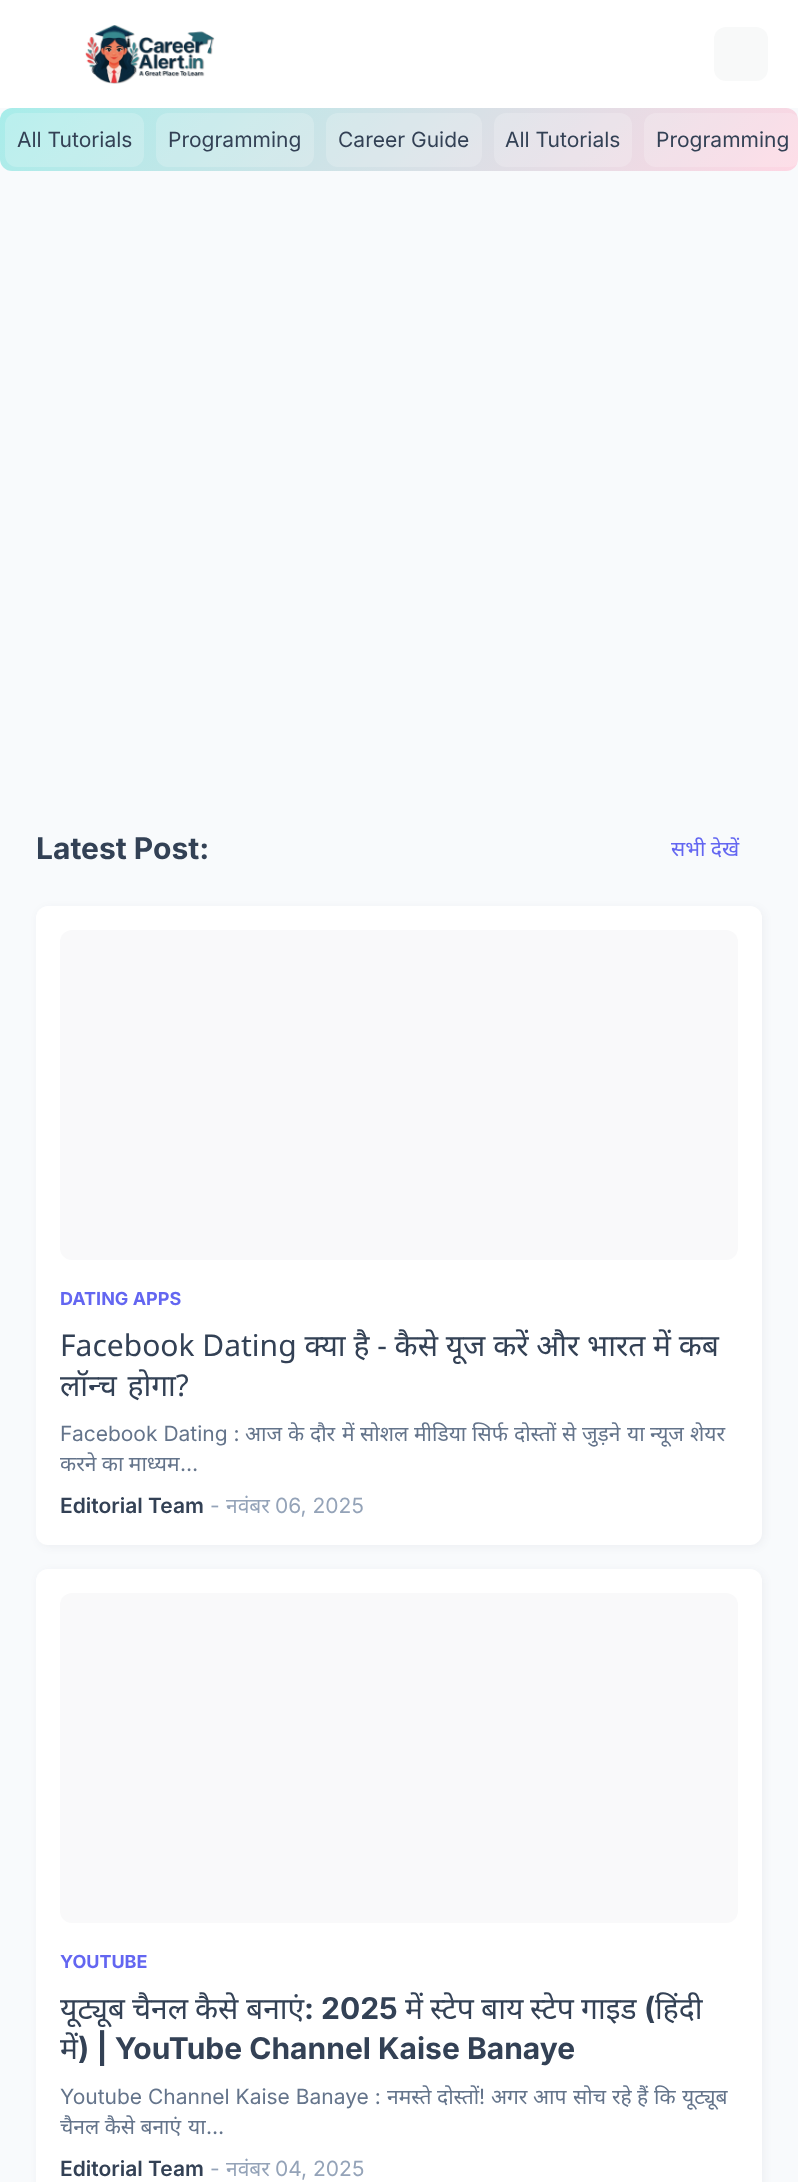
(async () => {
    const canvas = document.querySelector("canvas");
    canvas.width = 798;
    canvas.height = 2182;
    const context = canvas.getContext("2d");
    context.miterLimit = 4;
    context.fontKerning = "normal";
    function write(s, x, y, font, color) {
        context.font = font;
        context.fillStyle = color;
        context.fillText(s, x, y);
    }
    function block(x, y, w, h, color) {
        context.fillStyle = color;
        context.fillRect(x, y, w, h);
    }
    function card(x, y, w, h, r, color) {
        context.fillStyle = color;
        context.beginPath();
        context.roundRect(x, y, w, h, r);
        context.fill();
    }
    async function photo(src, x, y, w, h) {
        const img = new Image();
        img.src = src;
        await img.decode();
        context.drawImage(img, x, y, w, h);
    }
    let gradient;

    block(0, 0, 798, 2182, "rgb(248, 250, 252)");
    block(0, 0, 798, 108, "rgb(255, 255, 255)");
    await photo("media/1.png", 85, 25, 130, 59);
    card(714, 27, 54, 54, 12, "rgb(248, 249, 249)");
    gradient = context.createLinearGradient(184, -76, 614, 355);
    gradient.addColorStop(0, "rgb(168, 237, 234)");
    gradient.addColorStop(1, "rgb(254, 214, 227)");
    context.fillStyle = gradient;
    context.beginPath();
    context.roundRect(0, 108, 798, 63, 12);
    context.fill();
    card(5, 113, 139, 54, 12, "rgba(255, 255, 255, 0.2)");
    write("All Tutorials", 17, 147, "21px Inter", "rgb(51, 65, 85)");
    card(156, 113, 158, 54, 12, "rgba(255, 255, 255, 0.2)");
    write("Programming", 168, 147, "21px Inter", "rgb(51, 65, 85)");
    card(326, 113, 156, 54, 12, "rgba(255, 255, 255, 0.2)");
    write("Career Guide", 338, 147, "21px Inter", "rgb(51, 65, 85)");
    card(494, 113, 138, 54, 12, "rgba(255, 255, 255, 0.2)");
    write("All Tutorials", 505, 147, "21px Inter", "rgb(51, 65, 85)");
    card(644, 113, 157, 54, 12, "rgba(255, 255, 255, 0.2)");
    write("Programming", 656, 147, "21px Inter", "rgb(51, 65, 85)");
    write("Latest Post:", 36, 859, "bold 30px Inter", "rgb(51, 65, 85)");
    write("सभी देखें", 671, 856, "21px Noto Sans", "rgb(99, 102, 241)");
    context.fillStyle = "rgba(30, 41, 59, 0.05)";
    context.filter = "blur(4px)";
    context.beginPath();
    context.roundRect(38, 908, 726, 639, 12);
    context.fill();
    context.filter = "none";
    card(36, 906, 726, 639, 12, "rgb(255, 255, 255)");
    card(60, 930, 678, 330, 12, "rgb(249, 249, 250)");
    write("DATING APPS", 60, 1305, "bold 18px Inter", "rgb(99, 102, 241)");
    write("Facebook Dating क्या है - कैसे यूज करें और भारत में कब", 60, 1356, "30px Noto Sans", "rgb(51, 65, 85)");
    context.save();
    context.beginPath();
    context.rect(60, 1326, 678, 81);
    context.clip();
    context.wordSpacing = "3px";
    write("लॉन्च होगा?", 60, 1396, "30px Noto Sans", "rgb(51, 65, 85)");
    context.restore();
    write("Facebook Dating :", 60, 1441, "21px Inter", "rgb(100, 116, 139)");
    write("आज", 245, 1441, "21px Noto Sans", "rgb(100, 116, 139)");
    write("के", 288, 1441, "21px Noto Sans", "rgb(100, 116, 139)");
    write("दौर", 310, 1441, "21px Noto Sans", "rgb(100, 116, 139)");
    write("में", 342, 1441, "21px Noto Sans", "rgb(100, 116, 139)");
    write("सोशल", 360, 1441, "21px Noto Sans", "rgb(100, 116, 139)");
    write("मीडिया", 414, 1441, "21px Noto Sans", "rgb(100, 116, 139)");
    write("सिर्फ", 472, 1441, "21px Noto Sans", "rgb(100, 116, 139)");
    write("दोस्तों", 514, 1441, "21px Noto Sans", "rgb(100, 116, 139)");
    write("से", 562, 1441, "21px Noto Sans", "rgb(100, 116, 139)");
    write("जुड़ने", 582, 1441, "21px Noto Sans", "rgb(100, 116, 139)");
    write("या", 627, 1441, "21px Noto Sans", "rgb(100, 116, 139)");
    write("न्यूज", 650, 1441, "21px Noto Sans", "rgb(100, 116, 139)");
    write("शेयर", 690, 1441, "21px Noto Sans", "rgb(100, 116, 139)");
    write("करने का माध्यम", 60, 1471, "21px Noto Sans", "rgb(100, 116, 139)");
    write("…", 180, 1471, "21px Inter", "rgb(100, 116, 139)");
    write("Editorial Team", 60, 1513, "600 21px Inter", "rgb(51, 65, 85)");
    write("-", 210, 1513, "21px Inter", "rgb(148, 163, 184)");
    write("नवंबर", 226, 1513, "21px Noto Sans", "rgb(148, 163, 184)");
    write("06, 2025", 275, 1513, "21px Inter", "rgb(148, 163, 184)");
    context.fillStyle = "rgba(30, 41, 59, 0.05)";
    context.filter = "blur(4px)";
    context.beginPath();
    context.roundRect(38, 1571, 726, 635, 12);
    context.fill();
    context.filter = "none";
    card(36, 1569, 726, 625, 12, "rgb(255, 255, 255)");
    card(60, 1593, 678, 330, 12, "rgb(249, 249, 250)");
    write("YOUTUBE", 60, 1968, "bold 18px Inter", "rgb(99, 102, 241)");
    context.save();
    context.beginPath();
    context.rect(60, 1989, 678, 81);
    context.clip();
    write("यूट्यूब", 60, 2019, "30px Noto Sans", "rgb(51, 65, 85)");
    context.restore();
    write("चैनल", 132, 2019, "30px Noto Sans", "rgb(51, 65, 85)");
    write("कैसे", 195, 2019, "30px Noto Sans", "rgb(51, 65, 85)");
    write("बनाएं", 246, 2019, "30px Noto Sans", "rgb(51, 65, 85)");
    write(": 2025", 304, 2019, "bold 30px Inter", "rgb(51, 65, 85)");
    write("में", 405, 2019, "30px Noto Sans", "rgb(51, 65, 85)");
    write("स्टेप", 430, 2019, "30px Noto Sans", "rgb(51, 65, 85)");
    write("बाय", 481, 2019, "30px Noto Sans", "rgb(51, 65, 85)");
    write("स्टेप", 530, 2019, "30px Noto Sans", "rgb(51, 65, 85)");
    write("गाइड", 581, 2019, "30px Noto Sans", "rgb(51, 65, 85)");
    write("(", 644, 2019, "bold 30px Inter", "rgb(51, 65, 85)");
    write("हिंदी", 655, 2019, "30px Noto Sans", "rgb(51, 65, 85)");
    context.save();
    context.beginPath();
    context.rect(60, 1989, 678, 81);
    context.clip();
    write("में", 60, 2059, "30px Noto Sans", "rgb(51, 65, 85)");
    context.restore();
    write(") | YouTube Channel Kaise Banaye", 78, 2059, "bold 30px Inter", "rgb(51, 65, 85)");
    write("Youtube Channel Kaise Banaye :", 60, 2104, "21px Inter", "rgb(100, 116, 139)");
    write("नमस्ते", 387, 2104, "21px Noto Sans", "rgb(100, 116, 139)");
    write("दोस्तों", 437, 2104, "21px Noto Sans", "rgb(100, 116, 139)");
    write("!", 479, 2104, "21px Inter", "rgb(100, 116, 139)");
    write("अगर", 491, 2104, "21px Noto Sans", "rgb(100, 116, 139)");
    write("आप", 533, 2104, "21px Noto Sans", "rgb(100, 116, 139)");
    write("सोच", 573, 2104, "21px Noto Sans", "rgb(100, 116, 139)");
    write("रहे", 612, 2104, "21px Noto Sans", "rgb(100, 116, 139)");
    write("हैं", 637, 2104, "21px Noto Sans", "rgb(100, 116, 139)");
    write("कि", 654, 2104, "21px Noto Sans", "rgb(100, 116, 139)");
    write("यूट्यूब", 682, 2104, "21px Noto Sans", "rgb(100, 116, 139)");
    write("चैनल कैसे बनाएं", 60, 2134, "21px Noto Sans", "rgb(100, 116, 139)");
    write("या", 188, 2134, "21px Noto Sans", "rgb(100, 116, 139)");
    write("…", 206, 2134, "21px Inter", "rgb(100, 116, 139)");
    write("Editorial Team", 60, 2176, "600 21px Inter", "rgb(51, 65, 85)");
    write("-", 210, 2176, "21px Inter", "rgb(148, 163, 184)");
    write("नवंबर", 226, 2176, "21px Noto Sans", "rgb(148, 163, 184)");
    write("04, 2025", 275, 2176, "21px Inter", "rgb(148, 163, 184)");
})();
